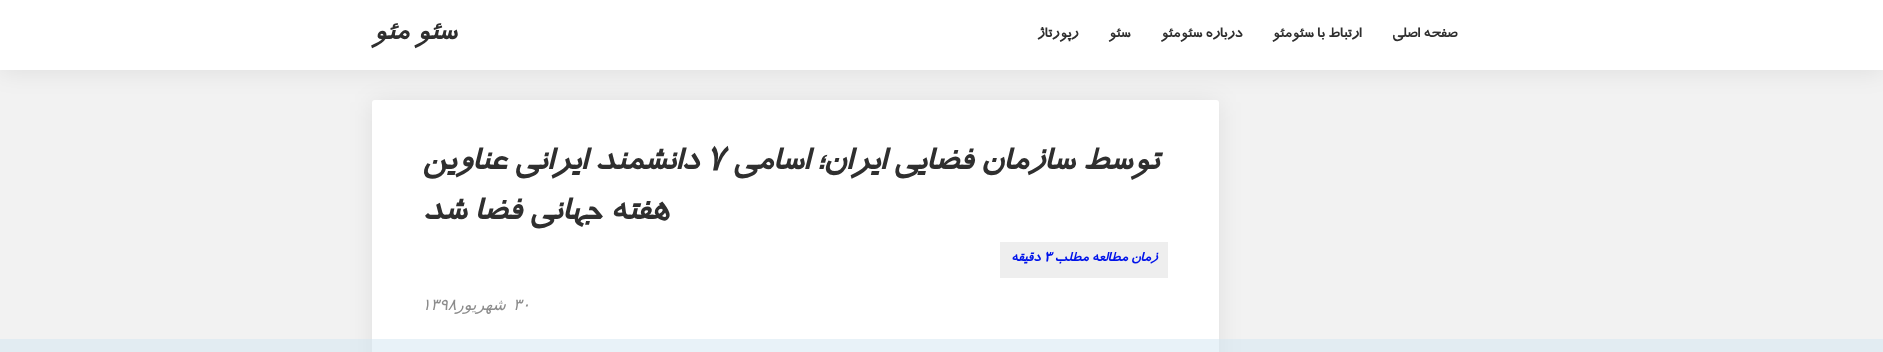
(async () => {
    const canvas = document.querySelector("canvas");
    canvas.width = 1883;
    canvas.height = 352;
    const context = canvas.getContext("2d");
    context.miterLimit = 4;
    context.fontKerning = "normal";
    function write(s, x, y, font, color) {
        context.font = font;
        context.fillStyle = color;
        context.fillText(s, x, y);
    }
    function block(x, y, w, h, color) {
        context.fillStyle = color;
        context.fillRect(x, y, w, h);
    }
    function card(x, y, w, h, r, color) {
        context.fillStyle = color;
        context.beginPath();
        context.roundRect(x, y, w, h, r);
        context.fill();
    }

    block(0, 0, 1883, 352, "rgb(242, 242, 242)");
    context.fillStyle = "rgba(0, 0, 0, 0.08)";
    context.filter = "blur(12.5px)";
    context.beginPath();
    context.roundRect(372, 102, 847, 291, 3);
    context.fill();
    context.filter = "none";
    card(372, 100, 847, 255, 3, "rgb(255, 255, 255)");
    context.fillStyle = "rgba(0, 0, 0, 0.08)";
    context.filter = "blur(12.5px)";
    context.beginPath();
    context.rect(0, 2, 1883, 70);
    context.fill();
    context.filter = "none";
    block(0, 0, 1883, 70, "rgb(255, 255, 255)");
    context.direction = "rtl";
    write("صفحه اصلی", 1457, 37, "bold 16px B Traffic", "rgb(47, 47, 47)");
    write("ارتباط با سئومئو", 1361, 37, "bold 16px B Traffic", "rgb(47, 47, 47)");
    write("درباره سئومئو", 1242, 37, "bold 16px B Traffic", "rgb(47, 47, 47)");
    write("سئو", 1130, 37, "bold 16px B Traffic", "rgb(47, 47, 47)");
    write("رپورتاژ", 1078, 37, "bold 16px B Traffic", "rgb(47, 47, 47)");
    write("سئو مئو", 456, 39, "italic bold 30px B Traffic", "rgb(47, 47, 47)");
    write("توسط سازمان فضایی ایران؛ اسامی", 1158, 169, "italic bold 36px B Traffic", "rgb(47, 47, 47)");
    context.direction = "ltr";
    write("۷", 706, 169, "italic bold 36px B Traffic", "rgb(47, 47, 47)");
    context.direction = "rtl";
    write("دانشمند ایرانی عناوین", 698, 169, "italic bold 36px B Traffic", "rgb(47, 47, 47)");
    write("هفته جهانی فضا شد", 668, 219, "italic bold 36px B Traffic", "rgb(47, 47, 47)");
    block(1000, 242, 168, 36, "rgb(238, 238, 238)");
    write("زمان مطالعه مطلب", 1157, 261, "italic bold 15px B Traffic", "rgb(0, 19, 234)");
    context.direction = "ltr";
    write("3", 1044, 261, "italic bold 15px B Traffic", "rgb(0, 19, 234)");
    context.direction = "rtl";
    write("دقیقه", 1040, 261, "italic bold 15px B Traffic", "rgb(0, 19, 234)");
    context.direction = "ltr";
    write("۳۰", 513, 310, "italic 16px DejaVu Sans", "rgb(140, 140, 140)");
    write("۱۳۹۸", 422, 310, "italic 16px DejaVu Sans", "rgb(140, 140, 140)");
    context.direction = "rtl";
    write("شهریور", 506, 310, "italic 16px DejaVu Sans", "rgb(140, 140, 140)");
    block(0, 339, 1883, 13, "rgba(210, 229, 242, 0.5)");
})();
